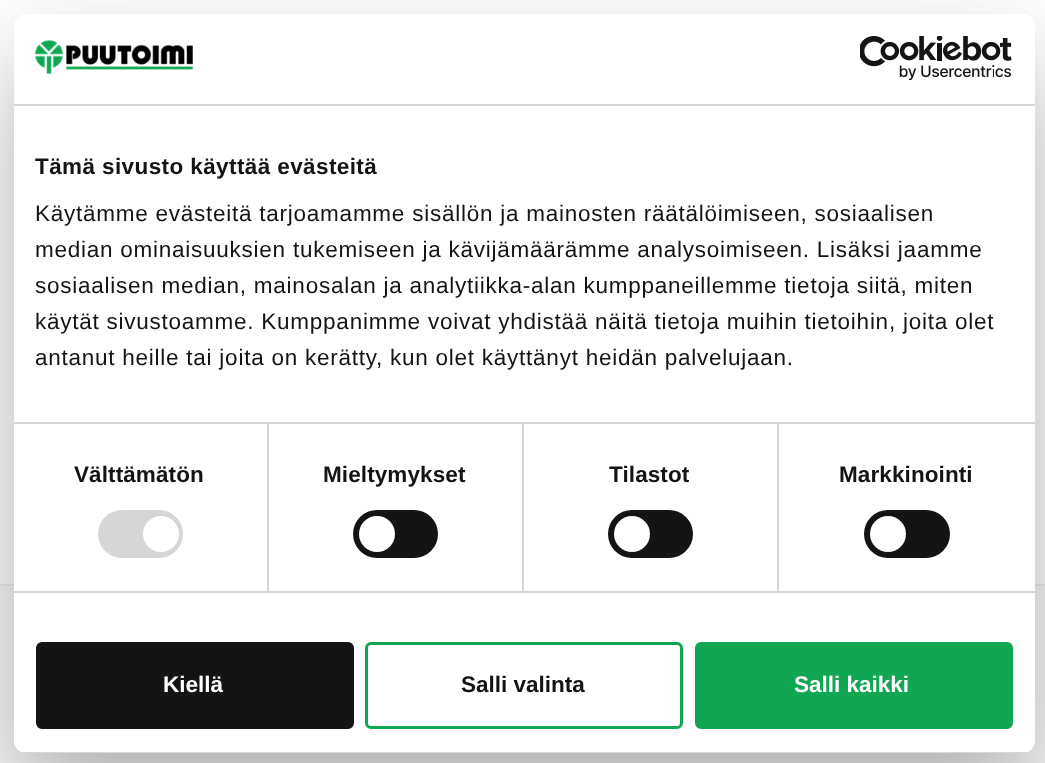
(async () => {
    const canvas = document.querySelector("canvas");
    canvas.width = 1045;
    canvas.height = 763;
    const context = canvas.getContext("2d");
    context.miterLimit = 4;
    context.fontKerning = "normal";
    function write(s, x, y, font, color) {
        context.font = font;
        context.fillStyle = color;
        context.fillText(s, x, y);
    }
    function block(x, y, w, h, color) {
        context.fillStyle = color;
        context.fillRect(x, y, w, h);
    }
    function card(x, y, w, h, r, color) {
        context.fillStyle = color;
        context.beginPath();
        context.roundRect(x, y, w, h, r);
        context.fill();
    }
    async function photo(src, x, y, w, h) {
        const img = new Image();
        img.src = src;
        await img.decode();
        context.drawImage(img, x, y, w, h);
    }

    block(0, 0, 1045, 763, "rgb(255, 255, 255)");
    block(0, 586, 1045, 177, "rgb(250, 250, 250)");
    block(0, 584, 1045, 2, "rgb(238, 238, 238)");
    context.fillStyle = "rgba(0, 0, 0, 0.3)";
    context.filter = "blur(51px)";
    context.beginPath();
    context.roundRect(14, 62, 1021, 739, 12);
    context.fill();
    context.filter = "none";
    card(14, 14, 1021, 739, 12, "rgb(255, 255, 255)");
    block(14, 104, 1021, 2, "rgb(214, 214, 214)");
    await photo("media/1.png", 35, 39, 159, 36);
    await photo("media/2.png", 860, 36, 152, 45);
    block(267, 423, 2, 168, "rgb(214, 214, 214)");
    block(522, 423, 2, 168, "rgb(214, 214, 214)");
    block(777, 423, 2, 168, "rgb(214, 214, 214)");
    block(14, 422, 1021, 2, "rgb(214, 214, 214)");
    context.letterSpacing = "0.4px";
    write("Tämä sivusto käyttää evästeitä", 35, 174, "bold 22.5px Liberation Sans", "rgb(20, 20, 20)");
    context.letterSpacing = "0.75px";
    write("Käytämme evästeitä tarjoamamme sisällön ja mainosten räätälöimiseen, sosiaalisen", 35, 221, "22.5px Liberation Sans", "rgb(20, 20, 20)");
    write("median ominaisuuksien tukemiseen ja kävijämäärämme analysoimiseen. Lisäksi jaamme", 35, 257, "22.5px Liberation Sans", "rgb(20, 20, 20)");
    write("sosiaalisen median, mainosalan ja analytiikka-alan kumppaneillemme tietoja siitä, miten", 35, 293, "22.5px Liberation Sans", "rgb(20, 20, 20)");
    write("käytät sivustoamme. Kumppanimme voivat yhdistää näitä tietoja muihin tietoihin, joita olet", 35, 329, "22.5px Liberation Sans", "rgb(20, 20, 20)");
    write("antanut heille tai joita on kerätty, kun olet käyttänyt heidän palvelujaan.", 35, 365, "22.5px Liberation Sans", "rgb(20, 20, 20)");
    block(14, 591, 1021, 2, "rgb(214, 214, 214)");
    context.letterSpacing = "0.1px";
    write("Välttämätön", 74, 482, "bold 22.5px Liberation Sans", "rgb(20, 20, 20)");
    card(98, 510, 85, 48, 24, "rgb(214, 214, 214)");
    context.fillStyle = "rgb(255, 255, 255)";
    context.beginPath();
    context.arc(161, 534, 18, 0, Math.PI * 2);
    context.fill();
    write("Mieltymykset", 323, 482, "bold 22.5px Liberation Sans", "rgb(20, 20, 20)");
    card(353, 510, 85, 48, 24, "rgb(20, 20, 20)");
    context.fillStyle = "rgb(255, 255, 255)";
    context.beginPath();
    context.arc(377, 534, 18, 0, Math.PI * 2);
    context.fill();
    write("Tilastot", 609, 482, "bold 22.5px Liberation Sans", "rgb(20, 20, 20)");
    card(608, 510, 85, 48, 24, "rgb(20, 20, 20)");
    context.fillStyle = "rgb(255, 255, 255)";
    context.beginPath();
    context.arc(632, 534, 18, 0, Math.PI * 2);
    context.fill();
    write("Markkinointi", 839, 482, "bold 22.5px Liberation Sans", "rgb(20, 20, 20)");
    card(864, 510, 86, 48, 24, "rgb(20, 20, 20)");
    context.fillStyle = "rgb(255, 255, 255)";
    context.beginPath();
    context.arc(888, 534, 18, 0, Math.PI * 2);
    context.fill();
    context.save();
    context.beginPath();
    context.roundRect(14, 14, 1021, 739, 12);
    context.clip();
    block(14, 752, 1021, 1, "rgb(214, 214, 214)");
    context.restore();
    context.fillStyle = "rgb(20, 20, 20)";
    context.beginPath();
    context.roundRect(37.5, 643.5, 315, 84, 4.5);
    context.fill();
    context.strokeStyle = "rgb(20, 20, 20)";
    context.lineWidth = 3;
    context.stroke();
    context.letterSpacing = "0px";
    write("Kiellä", 163, 692, "bold 22.5px Liberation Sans", "rgb(255, 255, 255)");
    context.beginPath();
    context.roundRect(366.5, 643.5, 315, 84, 4.5);
    context.strokeStyle = "rgb(17, 167, 82)";
    context.stroke();
    write("Salli valinta", 461, 692, "bold 22.5px Liberation Sans", "rgb(20, 20, 20)");
    context.fillStyle = "rgb(17, 167, 82)";
    context.beginPath();
    context.roundRect(696.5, 643.5, 315, 84, 4.5);
    context.fill();
    context.stroke();
    write("Salli kaikki", 794, 692, "bold 22.5px Liberation Sans", "rgb(255, 255, 255)");
})();
